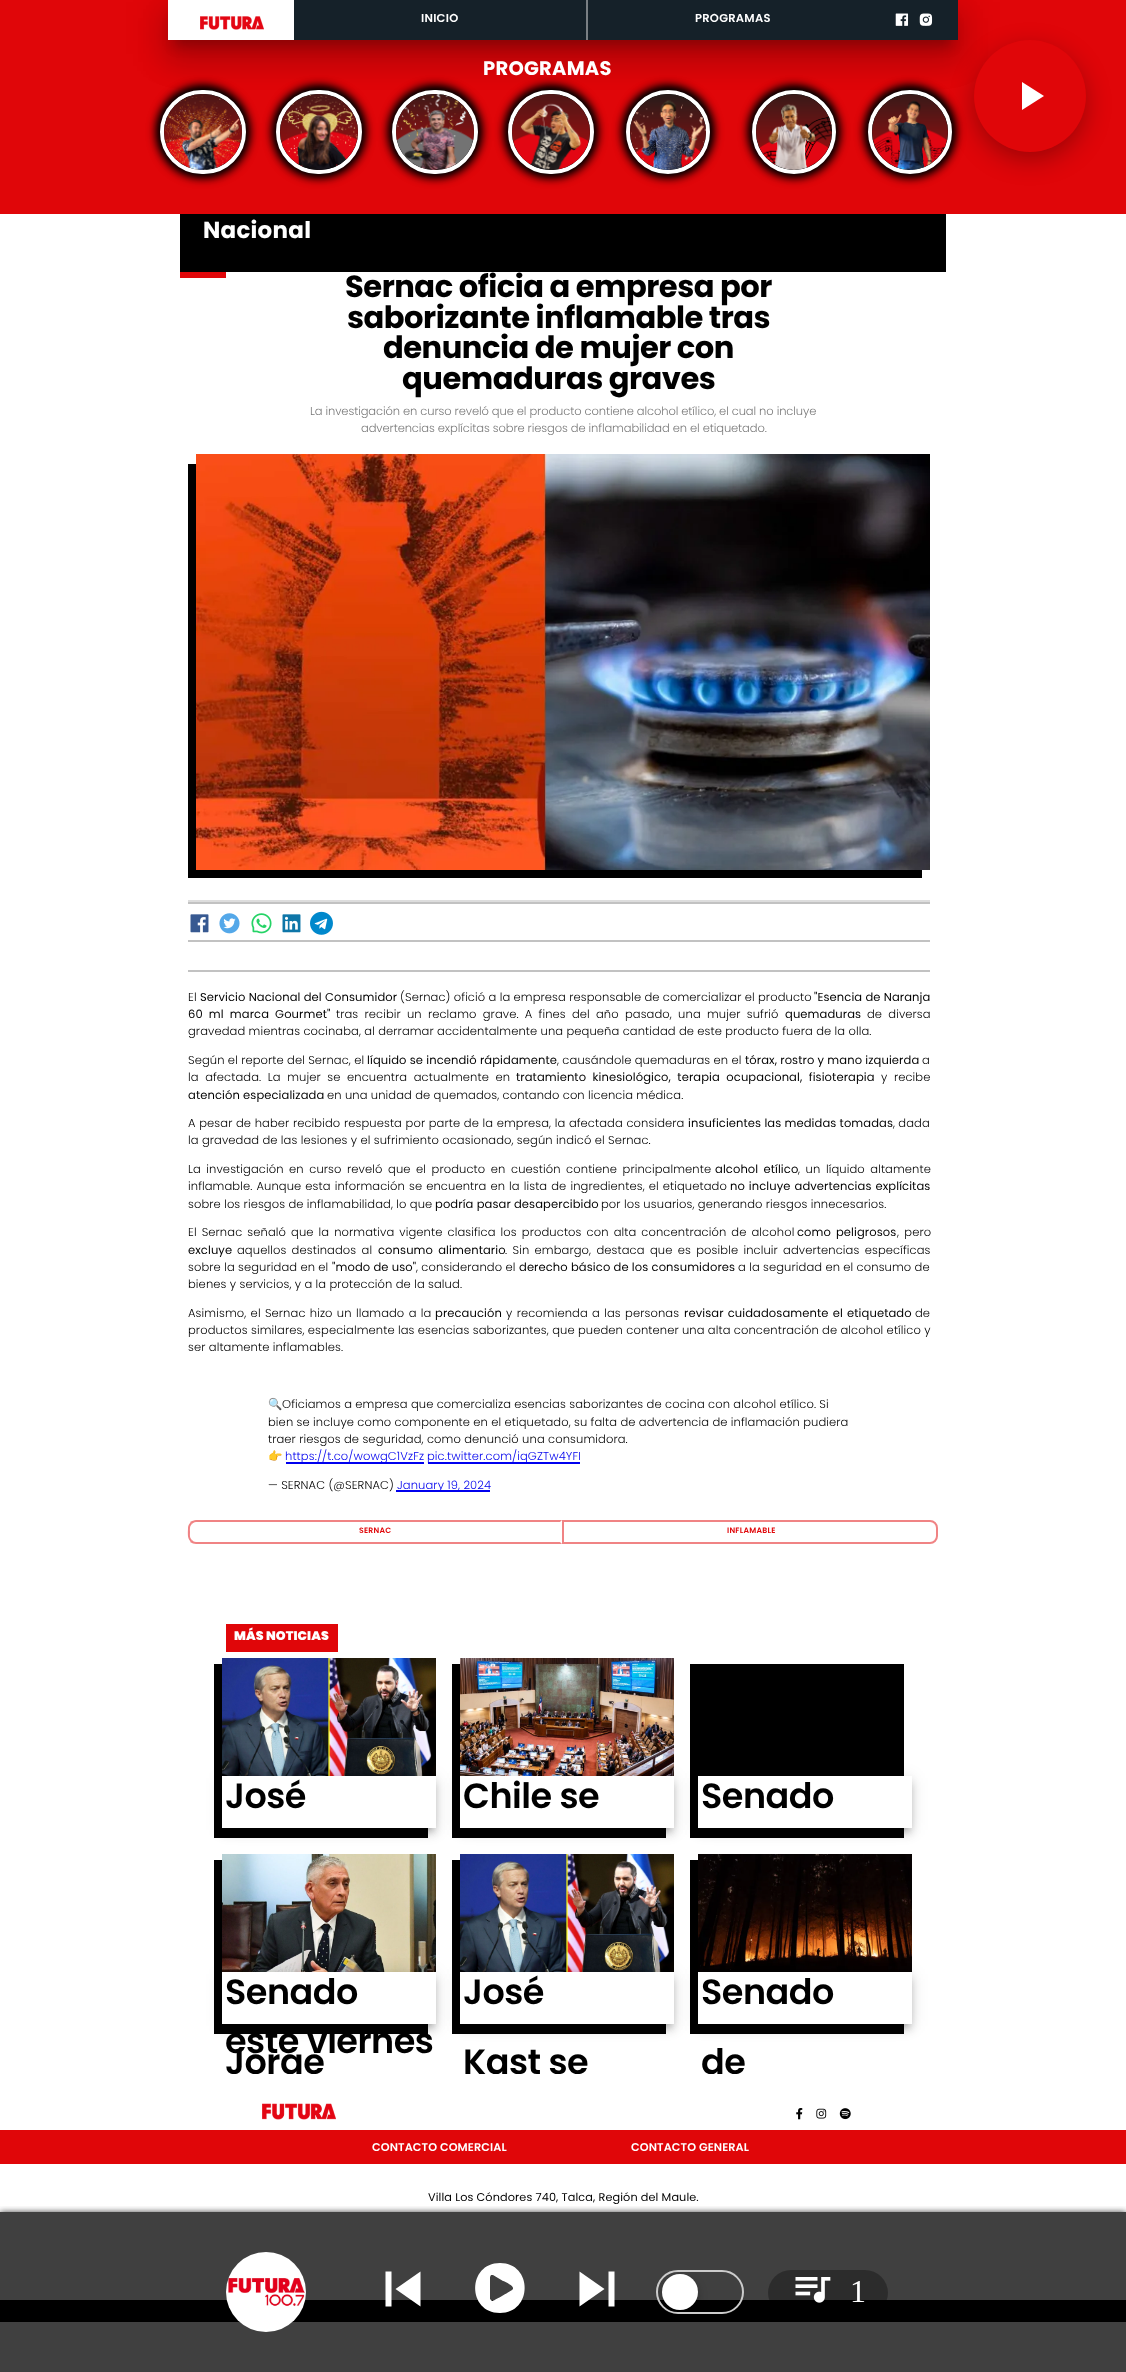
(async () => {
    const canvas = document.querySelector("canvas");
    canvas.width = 1126;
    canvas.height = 2372;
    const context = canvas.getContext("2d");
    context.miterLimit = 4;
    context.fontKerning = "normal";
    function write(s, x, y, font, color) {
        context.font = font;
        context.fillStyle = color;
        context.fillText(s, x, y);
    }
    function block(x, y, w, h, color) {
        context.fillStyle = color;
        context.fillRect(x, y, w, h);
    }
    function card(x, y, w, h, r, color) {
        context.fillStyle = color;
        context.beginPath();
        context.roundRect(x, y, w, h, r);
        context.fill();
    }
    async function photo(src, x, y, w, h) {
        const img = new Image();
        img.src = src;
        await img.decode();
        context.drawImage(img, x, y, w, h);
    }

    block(0, 0, 1126, 2372, "rgb(255, 255, 255)");
    block(0, 0, 1126, 214, "rgb(224, 6, 9)");
    context.fillStyle = "rgba(0, 0, 0, 0.12)";
    context.filter = "blur(18px)";
    context.beginPath();
    context.rect(162, 2, 802, 52);
    context.fill();
    context.filter = "none";
    context.fillStyle = "rgba(0, 0, 0, 0.14)";
    context.filter = "blur(14px)";
    context.beginPath();
    context.rect(166, 18, 794, 44);
    context.fill();
    context.filter = "none";
    context.fillStyle = "rgba(0, 0, 0, 0.2)";
    context.filter = "blur(6px)";
    context.beginPath();
    context.rect(174, 18, 778, 28);
    context.fill();
    context.filter = "none";
    block(294, 0, 664, 40, "rgb(21, 33, 41)");
    block(168, 0, 126, 40, "rgb(255, 255, 255)");
    block(586, 0, 2, 40, "rgb(121, 127, 131)");
    context.letterSpacing = "0.25px";
    write("INICIO", 421, 22, "600 11.5px Poppins", "rgb(255, 255, 255)");
    write("PROGRAMAS", 695, 22, "600 11.5px Poppins", "rgb(255, 255, 255)");
    await photo("media/1.png", 895, 13, 14, 13);
    await photo("media/2.png", 919, 13, 14, 13);
    await photo("media/3.png", 200, 16, 64, 14);
    write("PROGRAMAS", 483, 75, "bold 19.5px Poppins", "rgb(255, 255, 255)");
    context.fillStyle = "rgb(0, 0, 0)";
    context.filter = "blur(5px)";
    context.beginPath();
    context.roundRect(160, 88, 86, 86, 43);
    context.fill();
    context.filter = "none";
    await photo("media/11.png", 164, 94, 78, 76);
    context.filter = "blur(5px)";
    context.beginPath();
    context.roundRect(156, 86, 94, 92, 46);
    context.fill();
    context.filter = "none";
    context.beginPath();
    context.roundRect(162, 92, 82, 80, 40);
    context.strokeStyle = "rgb(255, 255, 255)";
    context.lineWidth = 4;
    context.stroke();
    await photo("media/4.png", 164, 94, 78, 76);
    context.filter = "blur(5px)";
    context.beginPath();
    context.roundRect(276, 88, 86, 86, 43);
    context.fill();
    context.filter = "none";
    await photo("media/12.png", 280, 94, 78, 76);
    context.filter = "blur(5px)";
    context.beginPath();
    context.roundRect(272, 86, 94, 92, 46);
    context.fill();
    context.filter = "none";
    context.beginPath();
    context.roundRect(278, 92, 82, 80, 40);
    context.stroke();
    await photo("media/5.png", 280, 94, 78, 76);
    context.filter = "blur(5px)";
    context.beginPath();
    context.roundRect(392, 88, 86, 86, 43);
    context.fill();
    context.filter = "none";
    await photo("media/13.png", 396, 94, 78, 76);
    context.filter = "blur(5px)";
    context.beginPath();
    context.roundRect(388, 86, 94, 92, 46);
    context.fill();
    context.filter = "none";
    context.beginPath();
    context.roundRect(394, 92, 82, 80, 40);
    context.stroke();
    await photo("media/6.png", 396, 94, 78, 76);
    context.filter = "blur(5px)";
    context.beginPath();
    context.roundRect(508, 88, 86, 86, 43);
    context.fill();
    context.filter = "none";
    await photo("media/14.png", 512, 94, 78, 76);
    context.filter = "blur(5px)";
    context.beginPath();
    context.roundRect(504, 86, 94, 92, 46);
    context.fill();
    context.filter = "none";
    context.beginPath();
    context.roundRect(510, 92, 82, 80, 40);
    context.stroke();
    await photo("media/7.png", 512, 94, 78, 76);
    context.filter = "blur(5px)";
    context.beginPath();
    context.roundRect(626, 88, 84, 86, 42);
    context.fill();
    context.filter = "none";
    await photo("media/15.png", 630, 94, 76, 76);
    context.filter = "blur(5px)";
    context.beginPath();
    context.roundRect(622, 86, 92, 92, 46);
    context.fill();
    context.filter = "none";
    context.beginPath();
    context.arc(668, 132, 40, 0, Math.PI * 2);
    context.stroke();
    await photo("media/8.png", 630, 94, 76, 76);
    context.filter = "blur(5px)";
    context.beginPath();
    context.roundRect(752, 88, 84, 86, 42);
    context.fill();
    context.filter = "none";
    await photo("media/16.png", 756, 94, 76, 76);
    context.filter = "blur(5px)";
    context.beginPath();
    context.roundRect(748, 86, 92, 92, 46);
    context.fill();
    context.filter = "none";
    context.beginPath();
    context.arc(794, 132, 40, 0, Math.PI * 2);
    context.stroke();
    await photo("media/9.png", 756, 94, 76, 76);
    context.filter = "blur(5px)";
    context.beginPath();
    context.roundRect(868, 88, 84, 86, 42);
    context.fill();
    context.filter = "none";
    await photo("media/17.png", 872, 94, 76, 76);
    context.filter = "blur(5px)";
    context.beginPath();
    context.roundRect(864, 86, 92, 92, 46);
    context.fill();
    context.filter = "none";
    context.beginPath();
    context.arc(910, 132, 40, 0, Math.PI * 2);
    context.stroke();
    await photo("media/10.png", 872, 94, 76, 76);
    block(180, 214, 766, 58, "rgb(0, 0, 0)");
    write("Nacional", 203, 238, "bold 23px Poppins", "rgb(255, 255, 255)");
    block(180, 272, 46, 6, "rgb(224, 6, 9)");
    context.letterSpacing = "-0.5px";
    write("Sernac oficia a empresa por", 345, 297, "bold 30.6px Poppins", "rgb(0, 0, 0)");
    write("saborizante inflamable tras", 347, 328, "bold 30.6px Poppins", "rgb(0, 0, 0)");
    write("denuncia de mujer con", 383, 358, "bold 30.6px Poppins", "rgb(0, 0, 0)");
    write("quemaduras graves", 402, 389, "bold 30.6px Poppins", "rgb(0, 0, 0)");
    context.letterSpacing = "-0.1px";
    write("La investigación en curso reveló que el producto contiene alcohol etílico, el cual no incluye", 310, 415, "300 11.5px Poppins", "rgb(122, 122, 122)");
    write("advertencias explícitas sobre riesgos de inflamabilidad en el etiquetado.", 361, 432, "300 11.5px Poppins", "rgb(122, 122, 122)");
    block(188, 464, 734, 414, "rgb(0, 0, 0)");
    await photo("media/18.png", 196, 454, 734, 416);
    block(188, 900, 742, 2, "rgb(221, 221, 221)");
    block(188, 902, 742, 2, "rgb(194, 194, 194)");
    await photo("media/19.png", 190, 914, 19, 19);
    await photo("media/20.png", 219, 913, 21, 21);
    await photo("media/21.png", 251, 913, 21, 21);
    await photo("media/22.png", 282, 914, 19, 19);
    await photo("media/23.png", 310, 911, 23, 24);
    block(188, 940, 742, 2, "rgb(194, 194, 194)");
    block(188, 970, 742, 2, "rgb(194, 194, 194)");
    context.letterSpacing = "0.11px";
    write("El", 188, 1001, "300 11.5px Poppins", "rgb(0, 0, 0)");
    write("Servicio Nacional del Consumidor", 200, 1001, "11.5px Poppins", "rgb(0, 0, 0)");
    write("(Sernac) ofició a la empresa responsable de comercializar el producto", 400, 1001, "300 11.5px Poppins", "rgb(0, 0, 0)");
    write("\"Esencia de Naranja", 814, 1001, "11.5px Poppins", "rgb(0, 0, 0)");
    context.wordSpacing = "2.9px";
    write("60 ml marca Gourmet\"", 188, 1018, "11.5px Poppins", "rgb(0, 0, 0)");
    write("tras recibir un reclamo grave. A fines del año pasado, una mujer sufrió", 336, 1018, "300 11.5px Poppins", "rgb(0, 0, 0)");
    context.wordSpacing = "0px";
    write("quemaduras", 785, 1018, "11.5px Poppins", "rgb(0, 0, 0)");
    context.wordSpacing = "2.9px";
    write("de diversa", 867, 1018, "300 11.5px Poppins", "rgb(0, 0, 0)");
    context.wordSpacing = "0px";
    write("gravedad mientras cocinaba, al derramar accidentalmente una pequeña cantidad de este producto fuera de la olla.", 188, 1035, "300 11.5px Poppins", "rgb(0, 0, 0)");
    write("Según el reporte del Sernac, el", 188, 1064, "300 11.5px Poppins", "rgb(0, 0, 0)");
    write("líquido se incendió rápidamente", 367, 1064, "11.5px Poppins", "rgb(0, 0, 0)");
    write(", causándole quemaduras en el", 557, 1064, "300 11.5px Poppins", "rgb(0, 0, 0)");
    write("tórax, rostro y mano izquierda", 745, 1064, "11.5px Poppins", "rgb(0, 0, 0)");
    write("a", 922, 1064, "300 11.5px Poppins", "rgb(0, 0, 0)");
    context.wordSpacing = "3.25px";
    write("la afectada. La mujer se encuentra actualmente en", 188, 1081, "300 11.5px Poppins", "rgb(0, 0, 0)");
    write("tratamiento kinesiológico, terapia ocupacional, fisioterapia", 516, 1081, "11.5px Poppins", "rgb(0, 0, 0)");
    write("y recibe", 881, 1081, "300 11.5px Poppins", "rgb(0, 0, 0)");
    context.wordSpacing = "0px";
    write("atención especializada", 188, 1099, "11.5px Poppins", "rgb(0, 0, 0)");
    write("en una unidad de quemados, contando con licencia médica.", 327, 1099, "300 11.5px Poppins", "rgb(0, 0, 0)");
    context.wordSpacing = "0.3px";
    write("A pesar de haber recibido respuesta por parte de la empresa, la afectada considera", 188, 1127, "300 11.5px Poppins", "rgb(0, 0, 0)");
    context.wordSpacing = "0px";
    write("insuficientes las medidas tomadas", 688, 1127, "11.5px Poppins", "rgb(0, 0, 0)");
    write(", dada", 893, 1127, "300 11.5px Poppins", "rgb(0, 0, 0)");
    write("la gravedad de las lesiones y el sufrimiento ocasionado, según indicó el Sernac.", 188, 1144, "300 11.5px Poppins", "rgb(0, 0, 0)");
    context.wordSpacing = "2.25px";
    write("La investigación en curso reveló que el producto en cuestión contiene principalmente", 188, 1173, "300 11.5px Poppins", "rgb(0, 0, 0)");
    context.wordSpacing = "2px";
    write("alcohol etílico", 715, 1173, "11.5px Poppins", "rgb(0, 0, 0)");
    context.wordSpacing = "2.25px";
    write(", un líquido altamente", 798, 1173, "300 11.5px Poppins", "rgb(0, 0, 0)");
    context.wordSpacing = "0.75px";
    write("inflamable. Aunque esta información se encuentra en la lista de ingredientes, el etiquetado", 188, 1190, "300 11.5px Poppins", "rgb(0, 0, 0)");
    write("no incluye advertencias explícitas", 730, 1190, "11.5px Poppins", "rgb(0, 0, 0)");
    context.wordSpacing = "0px";
    write("sobre los riesgos de inflamabilidad, lo que", 188, 1208, "300 11.5px Poppins", "rgb(0, 0, 0)");
    write("podría pasar desapercibido", 435, 1208, "11.5px Poppins", "rgb(0, 0, 0)");
    write("por los usuarios, generando riesgos innecesarios.", 601, 1208, "300 11.5px Poppins", "rgb(0, 0, 0)");
    context.wordSpacing = "1.75px";
    write("El Sernac señaló que la normativa vigente clasifica los productos con alta concentración de alcohol", 188, 1236, "300 11.5px Poppins", "rgb(0, 0, 0)");
    write("como peligrosos", 797, 1236, "11.5px Poppins", "rgb(0, 0, 0)");
    context.wordSpacing = "2px";
    write(", pero", 897, 1236, "300 11.5px Poppins", "rgb(0, 0, 0)");
    context.wordSpacing = "0px";
    write("excluye", 188, 1254, "11.5px Poppins", "rgb(0, 0, 0)");
    context.wordSpacing = "2px";
    write("aquellos destinados al", 237, 1254, "300 11.5px Poppins", "rgb(0, 0, 0)");
    write("consumo alimentario", 378, 1254, "11.5px Poppins", "rgb(0, 0, 0)");
    write(". Sin embargo, destaca que es posible incluir advertencias específicas", 505, 1254, "300 11.5px Poppins", "rgb(0, 0, 0)");
    context.wordSpacing = "0px";
    write("sobre la seguridad en el", 188, 1271, "300 11.5px Poppins", "rgb(0, 0, 0)");
    write("\"modo de uso\"", 332, 1271, "11.5px Poppins", "rgb(0, 0, 0)");
    write(", considerando el", 416, 1271, "300 11.5px Poppins", "rgb(0, 0, 0)");
    write("derecho básico de los consumidores", 519, 1271, "11.5px Poppins", "rgb(0, 0, 0)");
    write("a la seguridad en el consumo de", 738, 1271, "300 11.5px Poppins", "rgb(0, 0, 0)");
    write("bienes y servicios, y a la protección de la salud.", 188, 1288, "300 11.5px Poppins", "rgb(0, 0, 0)");
    context.wordSpacing = "1px";
    write("Asimismo, el Sernac hizo un llamado a la", 188, 1317, "300 11.5px Poppins", "rgb(0, 0, 0)");
    context.wordSpacing = "0px";
    write("precaución", 435, 1317, "11.5px Poppins", "rgb(0, 0, 0)");
    context.wordSpacing = "1px";
    write("y recomienda a las personas", 506, 1317, "300 11.5px Poppins", "rgb(0, 0, 0)");
    write("revisar cuidadosamente el etiquetado", 684, 1317, "11.5px Poppins", "rgb(0, 0, 0)");
    context.wordSpacing = "0px";
    write("de", 915, 1317, "300 11.5px Poppins", "rgb(0, 0, 0)");
    write("productos similares, especialmente las esencias saborizantes, que pueden contener una alta concentración de alcohol etílico y", 188, 1334, "300 11.5px Poppins", "rgb(0, 0, 0)");
    write("ser altamente inflamables.", 188, 1351, "300 11.5px Poppins", "rgb(0, 0, 0)");
    write("🔍", 268, 1408, "11.5px Noto Color Emoji", "rgb(0, 0, 0)");
    write("Oficiamos a empresa que comercializa esencias saborizantes de cocina con alcohol etílico. Si", 282, 1408, "300 11.5px Poppins", "rgb(0, 0, 0)");
    write("bien se incluye como componente en el etiquetado, su falta de advertencia de inflamación pudiera", 268, 1426, "300 11.5px Poppins", "rgb(0, 0, 0)");
    write("traer riesgos de seguridad, como denunció una consumidora.", 268, 1443, "300 11.5px Poppins", "rgb(0, 0, 0)");
    write("👉", 268, 1460, "11.5px Noto Color Emoji", "rgb(0, 0, 0)");
    block(286, 1462, 138, 2, "rgb(0, 0, 238)");
    write("https://t.co/wowgC1VzFz", 285, 1460, "300 11.5px Poppins", "rgb(0, 0, 238)");
    block(428, 1462, 152, 2, "rgb(0, 0, 238)");
    write("pic.twitter.com/iqGZTw4YFI", 427, 1460, "300 11.5px Poppins", "rgb(0, 0, 238)");
    write("— SERNAC (@SERNAC)", 268, 1489, "300 11.5px Poppins", "rgb(0, 0, 0)");
    block(396, 1490, 94, 2, "rgb(0, 0, 238)");
    write("January 19, 2024", 397, 1489, "300 11.5px Poppins", "rgb(0, 0, 238)");
    context.fillStyle = "rgb(240, 131, 132)";
    context.beginPath();
    context.moveTo(196, 1520);
    context.bezierCurveTo(194, 1520, 192, 1521, 190, 1522);
    context.lineTo(192, 1524);
    context.bezierCurveTo(193, 1523, 194, 1522, 196, 1522);
    context.lineTo(560, 1522);
    context.lineTo(562, 1520);
    context.closePath();
    context.fill();
    context.beginPath();
    context.moveTo(562, 1544);
    context.lineTo(560, 1542);
    context.lineTo(196, 1542);
    context.bezierCurveTo(194, 1542, 193, 1541, 192, 1540);
    context.lineTo(190, 1542);
    context.bezierCurveTo(192, 1543, 194, 1544, 196, 1544);
    context.closePath();
    context.fill();
    context.fillStyle = "rgba(224, 6, 9, 0.5)";
    context.beginPath();
    context.moveTo(188, 1528);
    context.bezierCurveTo(188, 1532.5, 187, 1538, 190.5, 1541.5);
    context.lineTo(192, 1540);
    context.bezierCurveTo(189.5, 1538, 190, 1535, 190, 1532);
    context.bezierCurveTo(190, 1529, 189.5, 1526, 192, 1524);
    context.lineTo(190.5, 1522.5);
    context.bezierCurveTo(189, 1524, 188, 1526, 188, 1528);
    context.closePath();
    context.fill();
    context.letterSpacing = "0.25px";
    write("SERNAC", 359, 1533, "600 7.75px Poppins", "rgb(224, 6, 9)");
    context.beginPath();
    context.roundRect(563, 1521, 374, 22, [0, 7, 7, 0]);
    context.strokeStyle = "rgb(240, 131, 132)";
    context.lineWidth = 2;
    context.stroke();
    write("INFLAMABLE", 727, 1533, "600 7.75px Poppins", "rgb(224, 6, 9)");
    block(226, 1624, 112, 28, "rgb(224, 6, 9)");
    context.letterSpacing = "0.1px";
    write("MÁS NOTICIAS", 234, 1640, "900 12.5px Poppins", "rgb(255, 255, 255)");
    block(214, 1664, 214, 174, "rgb(0, 0, 0)");
    await photo("media/24.png", 222, 1658, 214, 118);
    context.fillStyle = "rgba(0, 0, 0, 0.12)";
    context.filter = "blur(8px)";
    context.beginPath();
    context.rect(222, 1778, 214, 52);
    context.fill();
    context.filter = "none";
    context.fillStyle = "rgba(0, 0, 0, 0.14)";
    context.filter = "blur(4px)";
    context.beginPath();
    context.rect(222, 1782, 214, 52);
    context.fill();
    context.filter = "none";
    context.fillStyle = "rgba(0, 0, 0, 0.2)";
    context.filter = "blur(3px)";
    context.beginPath();
    context.rect(226, 1786, 206, 44);
    context.fill();
    context.filter = "none";
    block(222, 1776, 214, 52, "rgb(255, 255, 255)");
    context.letterSpacing = "-0.5px";
    write("José", 225, 1808, "600 35px Poppins", "rgb(0, 0, 0)");
    write("este viernes", 225, 2053, "600 35px Poppins", "rgb(0, 0, 0)");
    block(452, 1664, 214, 174, "rgb(0, 0, 0)");
    await photo("media/25.png", 460, 1658, 214, 118);
    context.fillStyle = "rgba(0, 0, 0, 0.12)";
    context.filter = "blur(8px)";
    context.beginPath();
    context.rect(460, 1778, 214, 52);
    context.fill();
    context.filter = "none";
    context.fillStyle = "rgba(0, 0, 0, 0.14)";
    context.filter = "blur(4px)";
    context.beginPath();
    context.rect(460, 1782, 214, 52);
    context.fill();
    context.filter = "none";
    context.fillStyle = "rgba(0, 0, 0, 0.2)";
    context.filter = "blur(3px)";
    context.beginPath();
    context.rect(464, 1786, 206, 44);
    context.fill();
    context.filter = "none";
    block(460, 1776, 214, 52, "rgb(255, 255, 255)");
    write("Chile se", 463, 1808, "600 35px Poppins", "rgb(0, 0, 0)");
    block(690, 1664, 214, 174, "rgb(0, 0, 0)");
    context.fillStyle = "rgba(0, 0, 0, 0.12)";
    context.filter = "blur(8px)";
    context.beginPath();
    context.rect(698, 1778, 214, 52);
    context.fill();
    context.filter = "none";
    context.fillStyle = "rgba(0, 0, 0, 0.14)";
    context.filter = "blur(4px)";
    context.beginPath();
    context.rect(698, 1782, 214, 52);
    context.fill();
    context.filter = "none";
    context.fillStyle = "rgba(0, 0, 0, 0.2)";
    context.filter = "blur(3px)";
    context.beginPath();
    context.rect(702, 1786, 206, 44);
    context.fill();
    context.filter = "none";
    block(698, 1776, 214, 52, "rgb(255, 255, 255)");
    write("Senado", 701, 1808, "600 35px Poppins", "rgb(0, 0, 0)");
    block(214, 1860, 214, 174, "rgb(0, 0, 0)");
    await photo("media/26.png", 222, 1854, 214, 118);
    context.fillStyle = "rgba(0, 0, 0, 0.12)";
    context.filter = "blur(8px)";
    context.beginPath();
    context.rect(222, 1974, 214, 52);
    context.fill();
    context.filter = "none";
    context.fillStyle = "rgba(0, 0, 0, 0.14)";
    context.filter = "blur(4px)";
    context.beginPath();
    context.rect(222, 1978, 214, 52);
    context.fill();
    context.filter = "none";
    context.fillStyle = "rgba(0, 0, 0, 0.2)";
    context.filter = "blur(3px)";
    context.beginPath();
    context.rect(226, 1982, 206, 44);
    context.fill();
    context.filter = "none";
    block(222, 1972, 214, 52, "rgb(255, 255, 255)");
    write("Senado", 225, 2004, "600 35px Poppins", "rgb(0, 0, 0)");
    write("Jorge", 225, 2074, "600 35px Poppins", "rgb(0, 0, 0)");
    block(452, 1860, 214, 174, "rgb(0, 0, 0)");
    await photo("media/27.png", 460, 1854, 214, 118);
    context.fillStyle = "rgba(0, 0, 0, 0.12)";
    context.filter = "blur(8px)";
    context.beginPath();
    context.rect(460, 1974, 214, 52);
    context.fill();
    context.filter = "none";
    context.fillStyle = "rgba(0, 0, 0, 0.14)";
    context.filter = "blur(4px)";
    context.beginPath();
    context.rect(460, 1978, 214, 52);
    context.fill();
    context.filter = "none";
    context.fillStyle = "rgba(0, 0, 0, 0.2)";
    context.filter = "blur(3px)";
    context.beginPath();
    context.rect(464, 1982, 206, 44);
    context.fill();
    context.filter = "none";
    block(460, 1972, 214, 52, "rgb(255, 255, 255)");
    write("José", 463, 2004, "600 35px Poppins", "rgb(0, 0, 0)");
    write("Kast se", 463, 2074, "600 35px Poppins", "rgb(0, 0, 0)");
    block(690, 1860, 214, 174, "rgb(0, 0, 0)");
    await photo("media/28.png", 698, 1854, 214, 118);
    context.fillStyle = "rgba(0, 0, 0, 0.12)";
    context.filter = "blur(8px)";
    context.beginPath();
    context.rect(698, 1974, 214, 52);
    context.fill();
    context.filter = "none";
    context.fillStyle = "rgba(0, 0, 0, 0.14)";
    context.filter = "blur(4px)";
    context.beginPath();
    context.rect(698, 1978, 214, 52);
    context.fill();
    context.filter = "none";
    context.fillStyle = "rgba(0, 0, 0, 0.2)";
    context.filter = "blur(3px)";
    context.beginPath();
    context.rect(702, 1982, 206, 44);
    context.fill();
    context.filter = "none";
    block(698, 1972, 214, 52, "rgb(255, 255, 255)");
    write("Senado", 701, 2004, "600 35px Poppins", "rgb(0, 0, 0)");
    write("de", 701, 2074, "600 35px Poppins", "rgb(0, 0, 0)");
    block(232, 2074, 506, 10, "rgb(255, 255, 255)");
    await photo("media/29.png", 262, 2103, 74, 17);
    await photo("media/30.png", 796, 2108, 7, 12);
    await photo("media/31.png", 816, 2108, 11, 11);
    await photo("media/32.png", 839, 2108, 12, 12);
    block(0, 2130, 1126, 34, "rgb(224, 6, 9)");
    context.letterSpacing = "0.11px";
    write("CONTACTO COMERCIAL", 372, 2151, "600 11.25px Poppins", "rgb(255, 255, 255)");
    write("CONTACTO GENERAL", 631, 2151, "600 11.25px Poppins", "rgb(255, 255, 255)");
    write("Villa Los Cóndores 740, Talca, Región del Maule.", 428, 2201, "11.25px Poppins", "rgb(0, 0, 0)");
    block(0, 2300, 1126, 22, "rgb(0, 0, 0)");
    context.fillStyle = "rgba(0, 0, 0, 0.3)";
    context.filter = "blur(12px)";
    context.beginPath();
    context.roundRect(974, 48, 112, 112, 56);
    context.fill();
    context.filter = "none";
    context.fillStyle = "rgb(224, 6, 9)";
    context.beginPath();
    context.arc(1030, 96, 56, 0, Math.PI * 2);
    context.fill();
    context.fillStyle = "rgb(255, 255, 255)";
    context.beginPath();
    context.moveTo(1022, 82);
    context.lineTo(1022, 110);
    context.lineTo(1044, 96);
    context.closePath();
    context.fill();
    context.save();
    context.beginPath();
    context.rect(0, 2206, 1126, 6);
    context.clip();
    context.fillStyle = "rgb(64, 63, 63)";
    context.filter = "blur(3px)";
    context.beginPath();
    context.rect(0, 2212, 1126, 160);
    context.fill();
    context.filter = "none";
    context.restore();
    block(0, 2212, 1126, 160, "rgba(0, 0, 0, 0.75)");
    await photo("media/33.png", 226, 2252, 80, 80);
    context.fillStyle = "rgb(255, 255, 255)";
    context.beginPath();
    context.moveTo(385.5, 2271.5);
    context.lineTo(391.5, 2271.5);
    context.lineTo(391.5, 2306.5);
    context.lineTo(385.5, 2306.5);
    context.closePath();
    context.moveTo(395.5, 2289);
    context.lineTo(420.5, 2306.5);
    context.lineTo(420.5, 2271.5);
    context.closePath();
    context.fill();
    context.beginPath();
    context.moveTo(500, 2263);
    context.bezierCurveTo(467, 2263, 467, 2313, 500, 2313);
    context.bezierCurveTo(533, 2313, 533, 2263, 500, 2263);
    context.closePath();
    context.moveTo(512, 2290);
    context.bezierCurveTo(509, 2292, 494, 2301, 492, 2301);
    context.lineTo(490, 2299);
    context.lineTo(490, 2277);
    context.lineTo(491, 2275);
    context.lineTo(493, 2275);
    context.lineTo(503, 2281);
    context.bezierCurveTo(504, 2281, 517, 2287, 512, 2290);
    context.closePath();
    context.fill();
    context.beginPath();
    context.moveTo(579.5, 2306.5);
    context.lineTo(604.5, 2289);
    context.lineTo(579.5, 2271.5);
    context.closePath();
    context.moveTo(608.5, 2271.5);
    context.lineTo(608.5, 2306.5);
    context.lineTo(614.5, 2306.5);
    context.lineTo(614.5, 2271.5);
    context.closePath();
    context.fill();
    context.beginPath();
    context.roundRect(657, 2271, 86, 42, 21);
    context.strokeStyle = "rgb(204, 204, 204)";
    context.stroke();
    context.save();
    context.beginPath();
    context.roundRect(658, 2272, 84, 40, 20);
    context.clip();
    context.fillStyle = "rgba(0, 0, 0, 0.26)";
    context.filter = "blur(5px)";
    context.beginPath();
    context.roundRect(662, 2278, 36, 36, 18);
    context.fill();
    context.filter = "none";
    context.restore();
    context.beginPath();
    context.arc(680, 2292, 18, 0, Math.PI * 2);
    context.fill();
    card(768, 2270, 120, 46, 23, "rgba(0, 0, 0, 0.3)");
    await photo("media/34.png", 795, 2277, 36, 26);
    context.letterSpacing = "0px";
    write("1", 850, 2302, "32px Liberation Serif", "rgb(255, 255, 255)");
})();
